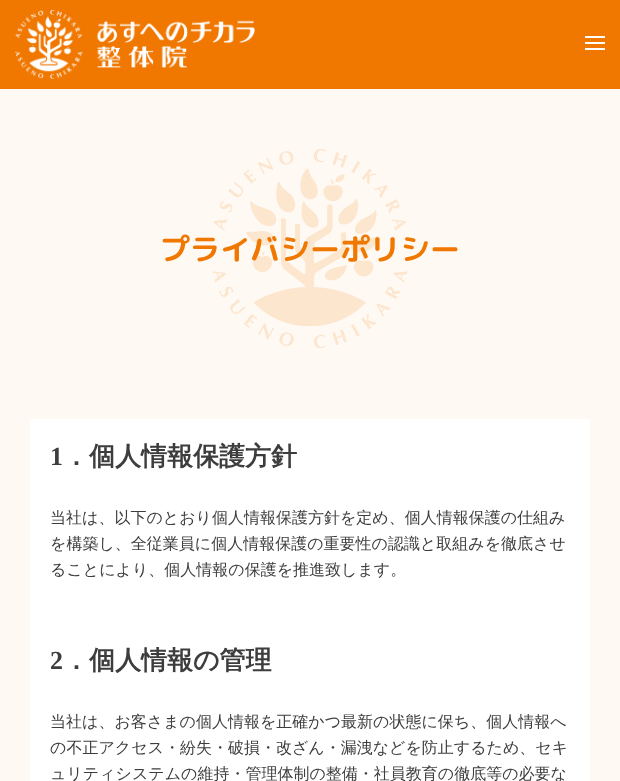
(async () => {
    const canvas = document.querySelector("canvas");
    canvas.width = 620;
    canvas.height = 781;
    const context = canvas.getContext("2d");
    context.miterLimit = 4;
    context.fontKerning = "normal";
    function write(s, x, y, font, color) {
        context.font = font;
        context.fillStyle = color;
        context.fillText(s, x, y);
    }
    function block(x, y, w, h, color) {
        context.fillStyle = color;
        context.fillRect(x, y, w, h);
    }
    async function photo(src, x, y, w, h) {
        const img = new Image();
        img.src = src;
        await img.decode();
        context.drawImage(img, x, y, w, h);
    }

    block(0, 0, 620, 781, "rgb(255, 249, 243)");
    block(0, 0, 620, 89, "rgb(240, 119, 0)");
    await photo("media/1.png", 15, 10, 240, 69);
    block(585, 42, 20, 2, "rgb(255, 255, 255)");
    block(585, 36, 20, 2, "rgb(255, 255, 255)");
    block(585, 48, 20, 2, "rgb(255, 255, 255)");
    await photo("media/2.png", 212, 149, 196, 199);
    write("プライバシーポリシー", 160, 260, "bold 30px 'Rounded Mplus 1c Bold'", "rgb(240, 119, 0)");
    block(30, 419, 560, 362, "rgb(255, 255, 255)");
    write("1", 50, 465, "bold 26px Liberation Serif", "rgb(61, 61, 61)");
    write("．個人情報保護方針", 63, 465, "bold 26px WenQuanYi Zen Hei", "rgb(61, 61, 61)");
    write("当社は、以下のとおり個人情報保護方針を定め、個人情報保護の仕組み", 50, 523, "500 16px WenQuanYi Zen Hei", "rgb(61, 61, 61)");
    write("を構築し、全従業員に個人情報保護の重要性の認識と取組みを徹底させ", 50, 549, "500 16px WenQuanYi Zen Hei", "rgb(61, 61, 61)");
    write("ることにより、個人情報の保護を推進致します。", 50, 575, "500 16px WenQuanYi Zen Hei", "rgb(61, 61, 61)");
    write("2", 50, 669, "bold 26px Liberation Serif", "rgb(61, 61, 61)");
    write("．個人情報の管理", 63, 669, "bold 26px WenQuanYi Zen Hei", "rgb(61, 61, 61)");
    write("当社は、お客さまの個人情報を正確かつ最新の状態に保ち、個人情報へ", 50, 727, "500 16px WenQuanYi Zen Hei", "rgb(61, 61, 61)");
    write("の不正アクセス・紛失・破損・改ざん・漏洩などを防止するため、セキ", 50, 753, "500 16px WenQuanYi Zen Hei", "rgb(61, 61, 61)");
    write("ュリティシステムの維持・管理体制の整備・社員教育の徹底等の必要な", 50, 779, "500 16px WenQuanYi Zen Hei", "rgb(61, 61, 61)");
})();
